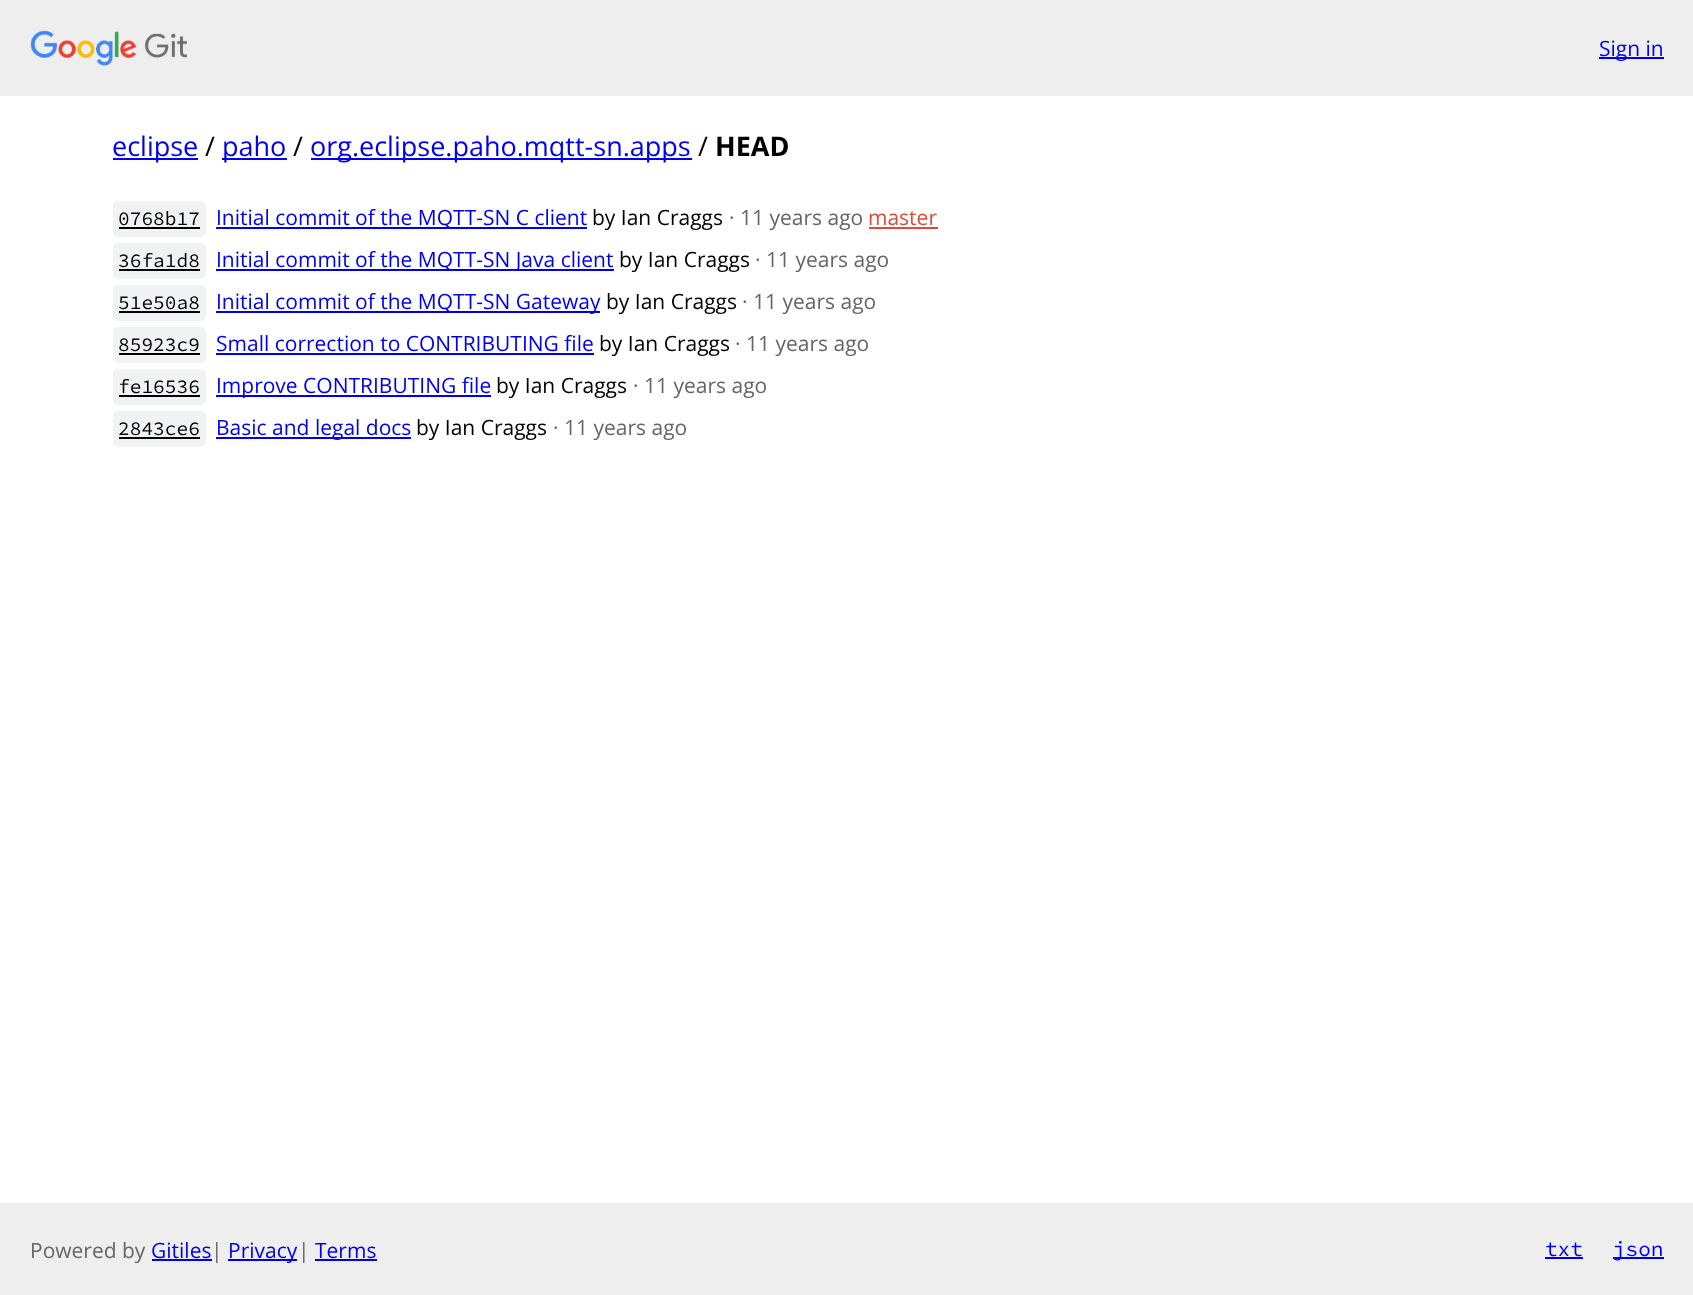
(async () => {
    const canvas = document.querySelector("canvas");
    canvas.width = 1693;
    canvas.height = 1295;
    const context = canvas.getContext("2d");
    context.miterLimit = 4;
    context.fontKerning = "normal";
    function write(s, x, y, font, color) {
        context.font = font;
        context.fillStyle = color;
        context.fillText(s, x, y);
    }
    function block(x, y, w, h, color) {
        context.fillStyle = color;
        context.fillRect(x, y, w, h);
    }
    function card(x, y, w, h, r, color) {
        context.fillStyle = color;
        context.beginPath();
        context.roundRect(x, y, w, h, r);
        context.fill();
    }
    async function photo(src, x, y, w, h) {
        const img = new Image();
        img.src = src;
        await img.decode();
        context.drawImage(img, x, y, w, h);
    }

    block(0, 0, 1693, 1295, "rgb(255, 255, 255)");
    block(0, 0, 1693, 96, "rgb(238, 238, 238)");
    await photo("media/1.png", 30, 30, 157, 36);
    block(1599, 57, 65, 2, "rgb(0, 0, 238)");
    write("Sign in", 1599, 56, "21px Open Sans", "rgb(0, 0, 238)");
    block(113, 158, 85, 2, "rgb(0, 0, 238)");
    write("eclipse", 112, 156, "27px Open Sans", "rgb(0, 0, 238)");
    write("/", 205, 156, "27px Open Sans", "rgb(0, 0, 0)");
    block(222, 158, 65, 2, "rgb(0, 0, 238)");
    write("paho", 222, 156, "27px Open Sans", "rgb(0, 0, 238)");
    write("/", 293, 156, "27px Open Sans", "rgb(0, 0, 0)");
    block(311, 158, 381, 2, "rgb(0, 0, 238)");
    write("org.eclipse.paho.mqtt-sn.apps", 310, 156, "27px Open Sans", "rgb(0, 0, 238)");
    write("/", 698, 156, "27px Open Sans", "rgb(0, 0, 0)");
    write("HEAD", 715, 156, "bold 27px Open Sans", "rgb(0, 0, 0)");
    card(113, 201, 93, 36, 5, "rgb(241, 242, 243)");
    write("0768b17", 118, 225, "200 19.5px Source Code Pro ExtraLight", "rgb(0, 0, 0)");
    block(119, 227, 81, 2, "rgb(0, 0, 0)");
    block(216, 227, 371, 2, "rgb(0, 0, 238)");
    write("Initial commit of the MQTT-SN C client", 216, 225, "21px Open Sans", "rgb(0, 0, 238)");
    write("by Ian Craggs", 592, 225, "21px Open Sans", "rgb(0, 0, 0)");
    write("· 11 years ago", 729, 225, "21px Open Sans", "rgb(102, 102, 102)");
    write("master", 868, 225, "21px Open Sans", "rgb(221, 75, 57)");
    block(869, 227, 69, 2, "rgb(221, 75, 57)");
    card(113, 243, 93, 36, 5, "rgb(241, 242, 243)");
    write("36fa1d8", 118, 267, "200 19.5px Source Code Pro ExtraLight", "rgb(0, 0, 0)");
    block(119, 269, 81, 2, "rgb(0, 0, 0)");
    block(216, 269, 398, 2, "rgb(0, 0, 238)");
    write("Initial commit of the MQTT-SN Java client", 216, 267, "21px Open Sans", "rgb(0, 0, 238)");
    write("by Ian Craggs", 619, 267, "21px Open Sans", "rgb(0, 0, 0)");
    write("· 11 years ago", 755, 267, "21px Open Sans", "rgb(102, 102, 102)");
    card(113, 285, 93, 36, 5, "rgb(241, 242, 243)");
    write("51e50a8", 118, 309, "200 19.5px Source Code Pro ExtraLight", "rgb(0, 0, 0)");
    block(119, 311, 81, 2, "rgb(0, 0, 0)");
    block(216, 311, 384, 2, "rgb(0, 0, 238)");
    write("Initial commit of the MQTT-SN Gateway", 216, 309, "21px Open Sans", "rgb(0, 0, 238)");
    write("by Ian Craggs", 606, 309, "21px Open Sans", "rgb(0, 0, 0)");
    write("· 11 years ago", 742, 309, "21px Open Sans", "rgb(102, 102, 102)");
    card(113, 327, 93, 36, 5, "rgb(241, 242, 243)");
    write("85923c9", 118, 351, "200 19.5px Source Code Pro ExtraLight", "rgb(0, 0, 0)");
    block(119, 353, 81, 2, "rgb(0, 0, 0)");
    write("Small correction to CONTRIBUTING file", 216, 351, "21px Open Sans", "rgb(0, 0, 238)");
    block(216, 353, 378, 2, "rgb(0, 0, 238)");
    write("by Ian Craggs", 599, 351, "21px Open Sans", "rgb(0, 0, 0)");
    write("· 11 years ago", 735, 351, "21px Open Sans", "rgb(102, 102, 102)");
    card(113, 369, 93, 36, 5, "rgb(241, 242, 243)");
    write("fe16536", 118, 393, "200 19.5px Source Code Pro ExtraLight", "rgb(0, 0, 0)");
    block(119, 395, 81, 2, "rgb(0, 0, 0)");
    block(216, 395, 275, 2, "rgb(0, 0, 238)");
    write("Improve CONTRIBUTING file", 216, 393, "21px Open Sans", "rgb(0, 0, 238)");
    write("by Ian Craggs", 496, 393, "21px Open Sans", "rgb(0, 0, 0)");
    write("· 11 years ago", 633, 393, "21px Open Sans", "rgb(102, 102, 102)");
    card(113, 411, 93, 36, 5, "rgb(241, 242, 243)");
    write("2843ce6", 118, 435, "200 19.5px Source Code Pro ExtraLight", "rgb(0, 0, 0)");
    block(119, 437, 81, 2, "rgb(0, 0, 0)");
    block(216, 437, 195, 2, "rgb(0, 0, 238)");
    write("Basic and legal docs", 216, 435, "21px Open Sans", "rgb(0, 0, 238)");
    write("by Ian Craggs", 416, 435, "21px Open Sans", "rgb(0, 0, 0)");
    write("· 11 years ago", 553, 435, "21px Open Sans", "rgb(102, 102, 102)");
    block(0, 1203, 1693, 92, "rgb(238, 238, 238)");
    write("Powered by", 30, 1258, "21px Open Sans", "rgb(102, 102, 102)");
    write("Gitiles", 151, 1258, "21px Open Sans", "rgb(0, 0, 238)");
    block(152, 1259, 60, 2, "rgb(0, 0, 238)");
    write("|", 211, 1258, "21px Open Sans", "rgb(102, 102, 102)");
    block(228, 1259, 69, 2, "rgb(0, 0, 238)");
    write("Privacy", 228, 1258, "21px Open Sans", "rgb(0, 0, 238)");
    write("|", 298, 1258, "21px Open Sans", "rgb(102, 102, 102)");
    write("Terms", 315, 1258, "21px Open Sans", "rgb(0, 0, 238)");
    block(315, 1259, 62, 2, "rgb(0, 0, 238)");
    write("txt", 1545, 1256, "200 21px Source Code Pro ExtraLight", "rgb(0, 0, 238)");
    block(1545, 1257, 38, 2, "rgb(0, 0, 238)");
    block(1613, 1257, 51, 2, "rgb(0, 0, 238)");
    write("json", 1613, 1256, "200 21px Source Code Pro ExtraLight", "rgb(0, 0, 238)");
})();
